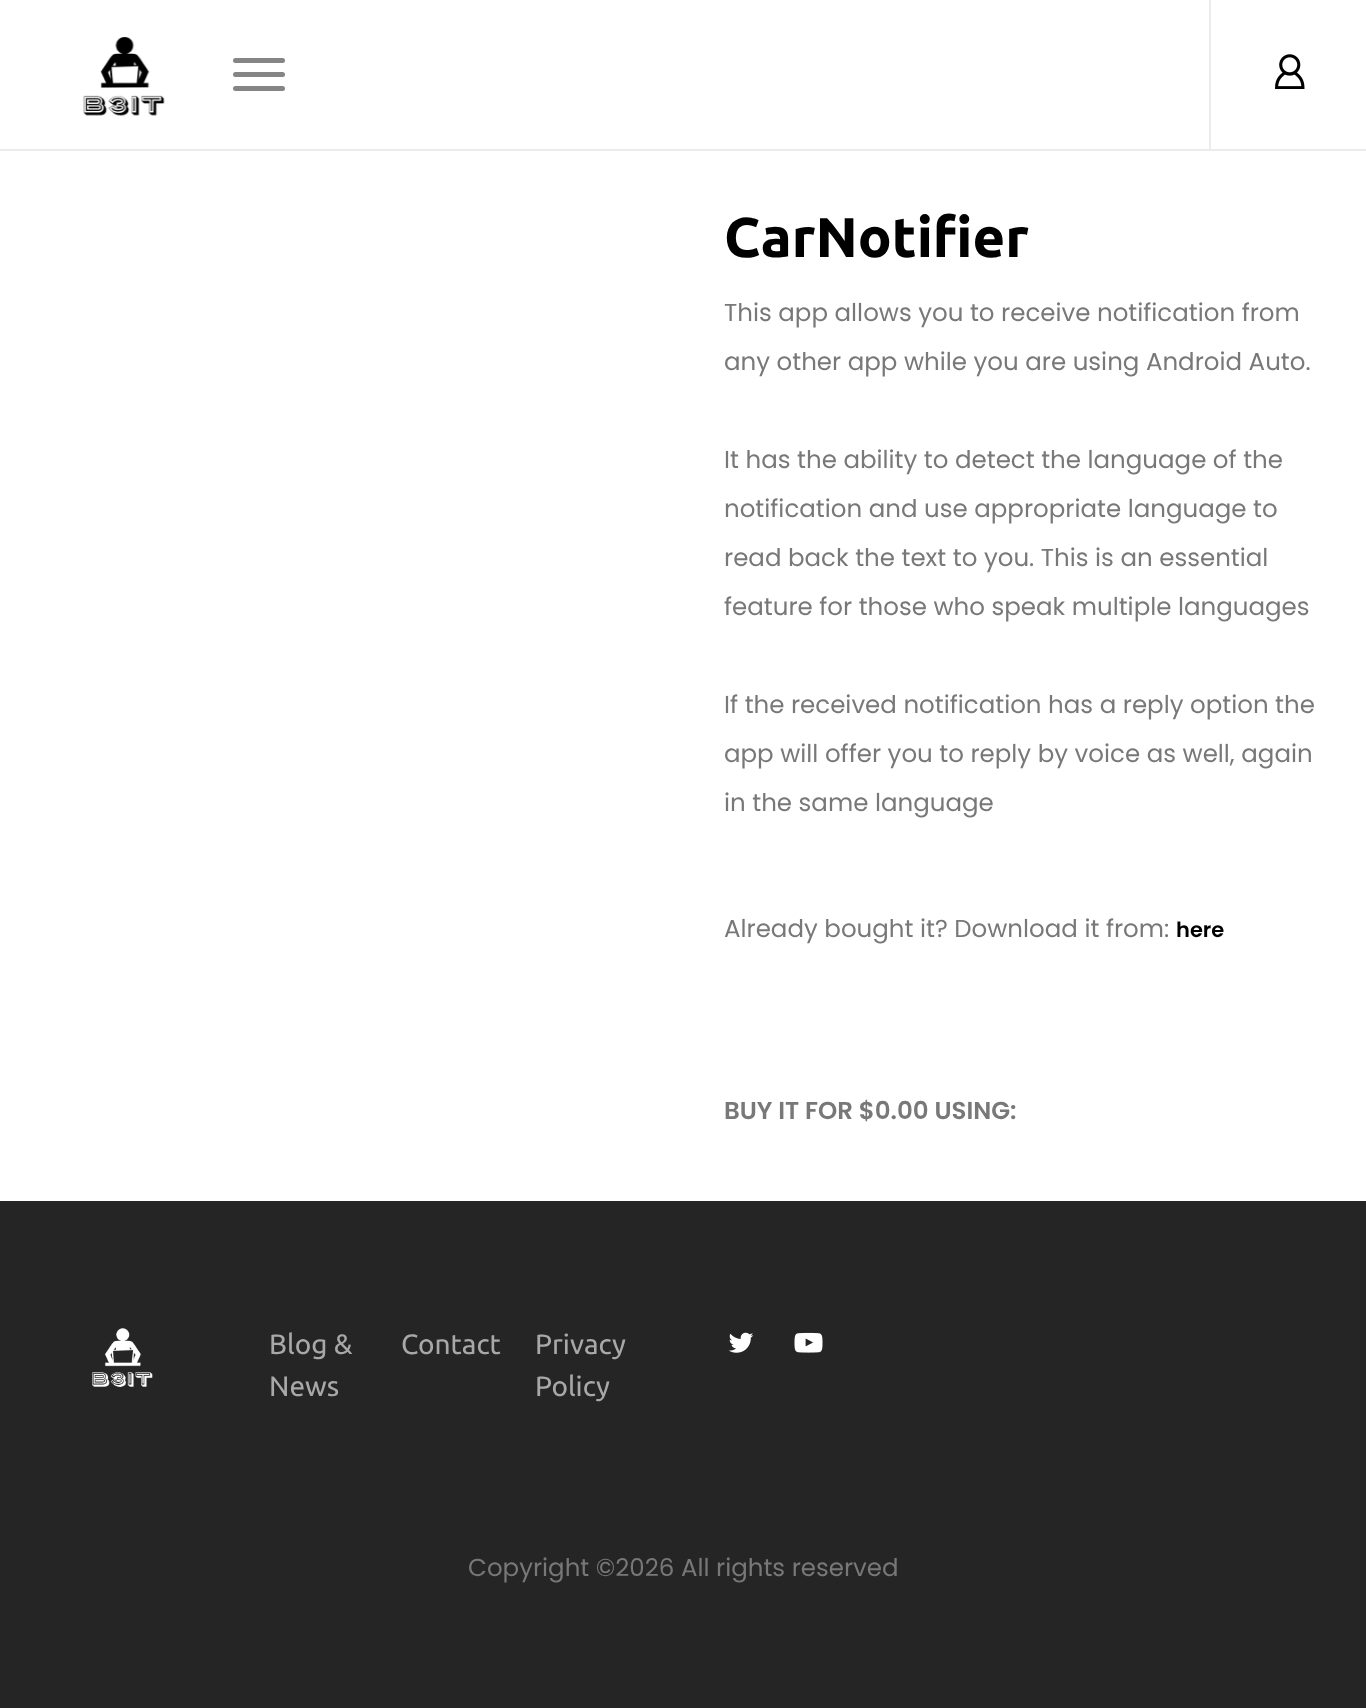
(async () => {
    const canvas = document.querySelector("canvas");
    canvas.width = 1366;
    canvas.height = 1708;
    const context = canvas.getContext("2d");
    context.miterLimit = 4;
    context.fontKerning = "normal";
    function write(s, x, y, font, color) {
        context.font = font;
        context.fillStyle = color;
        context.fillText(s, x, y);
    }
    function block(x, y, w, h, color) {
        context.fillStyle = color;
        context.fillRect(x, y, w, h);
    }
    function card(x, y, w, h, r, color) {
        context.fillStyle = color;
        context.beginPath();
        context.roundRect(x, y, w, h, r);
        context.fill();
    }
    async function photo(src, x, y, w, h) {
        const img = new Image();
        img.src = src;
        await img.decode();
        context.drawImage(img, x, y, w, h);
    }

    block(0, 0, 1366, 1708, "rgb(255, 255, 255)");
    block(0, 149, 1366, 2, "rgb(235, 235, 235)");
    await photo("media/1.png", 83, 37, 82, 79);
    card(233, 58, 52, 5, 2.5, "rgb(133, 133, 133)");
    card(233, 72, 52, 5, 2.5, "rgb(133, 133, 133)");
    card(233, 86, 52, 5, 2.5, "rgb(133, 133, 133)");
    block(1209, 0, 2, 149, "rgb(235, 235, 235)");
    await photo("media/2.png", 1275, 54, 30, 35);
    write("CarNotifier", 724, 257, "bold 56px Ubuntu", "rgb(0, 0, 0)");
    write("This app allows you to receive notification from", 724, 321, "24.5px Poppins", "rgb(120, 120, 120)");
    write("any other app while you are using Android Auto.", 724, 370, "24.5px Poppins", "rgb(120, 120, 120)");
    write("It has the ability to detect the language of the", 724, 468, "24.5px Poppins", "rgb(120, 120, 120)");
    write("notification and use appropriate language to", 724, 517, "24.5px Poppins", "rgb(120, 120, 120)");
    write("read back the text to you. This is an essential", 724, 566, "24.5px Poppins", "rgb(120, 120, 120)");
    write("feature for those who speak multiple languages", 724, 615, "24.5px Poppins", "rgb(120, 120, 120)");
    write("If the received notification has a reply option the", 724, 713, "24.5px Poppins", "rgb(120, 120, 120)");
    write("app will offer you to reply by voice as well, again", 724, 762, "24.5px Poppins", "rgb(120, 120, 120)");
    write("in the same language", 724, 811, "24.5px Poppins", "rgb(120, 120, 120)");
    write("Already bought it? Download it from:", 724, 937, "24.5px Poppins", "rgb(120, 120, 120)");
    write("here", 1176, 937, "600 21px Poppins", "rgb(0, 0, 0)");
    write("BUY IT FOR $0.00 USING:", 724, 1119, "600 24.5px Poppins", "rgb(120, 120, 120)");
    block(0, 1201, 1366, 507, "rgb(37, 37, 37)");
    await photo("media/3.png", 92, 1328, 61, 59);
    write("Blog &", 269, 1354, "28px Ubuntu", "rgb(168, 168, 168)");
    write("News", 269, 1396, "28px Ubuntu", "rgb(168, 168, 168)");
    write("Contact", 401, 1354, "28px Ubuntu", "rgb(168, 168, 168)");
    write("Privacy", 535, 1354, "28px Ubuntu", "rgb(168, 168, 168)");
    write("Policy", 535, 1396, "28px Ubuntu", "rgb(168, 168, 168)");
    await photo("media/4.png", 728, 1332, 26, 21);
    await photo("media/5.png", 794, 1332, 29, 21);
    write("Copyright ©2026 All rights reserved", 468, 1576, "24.5px Poppins", "rgb(120, 120, 120)");
})();
